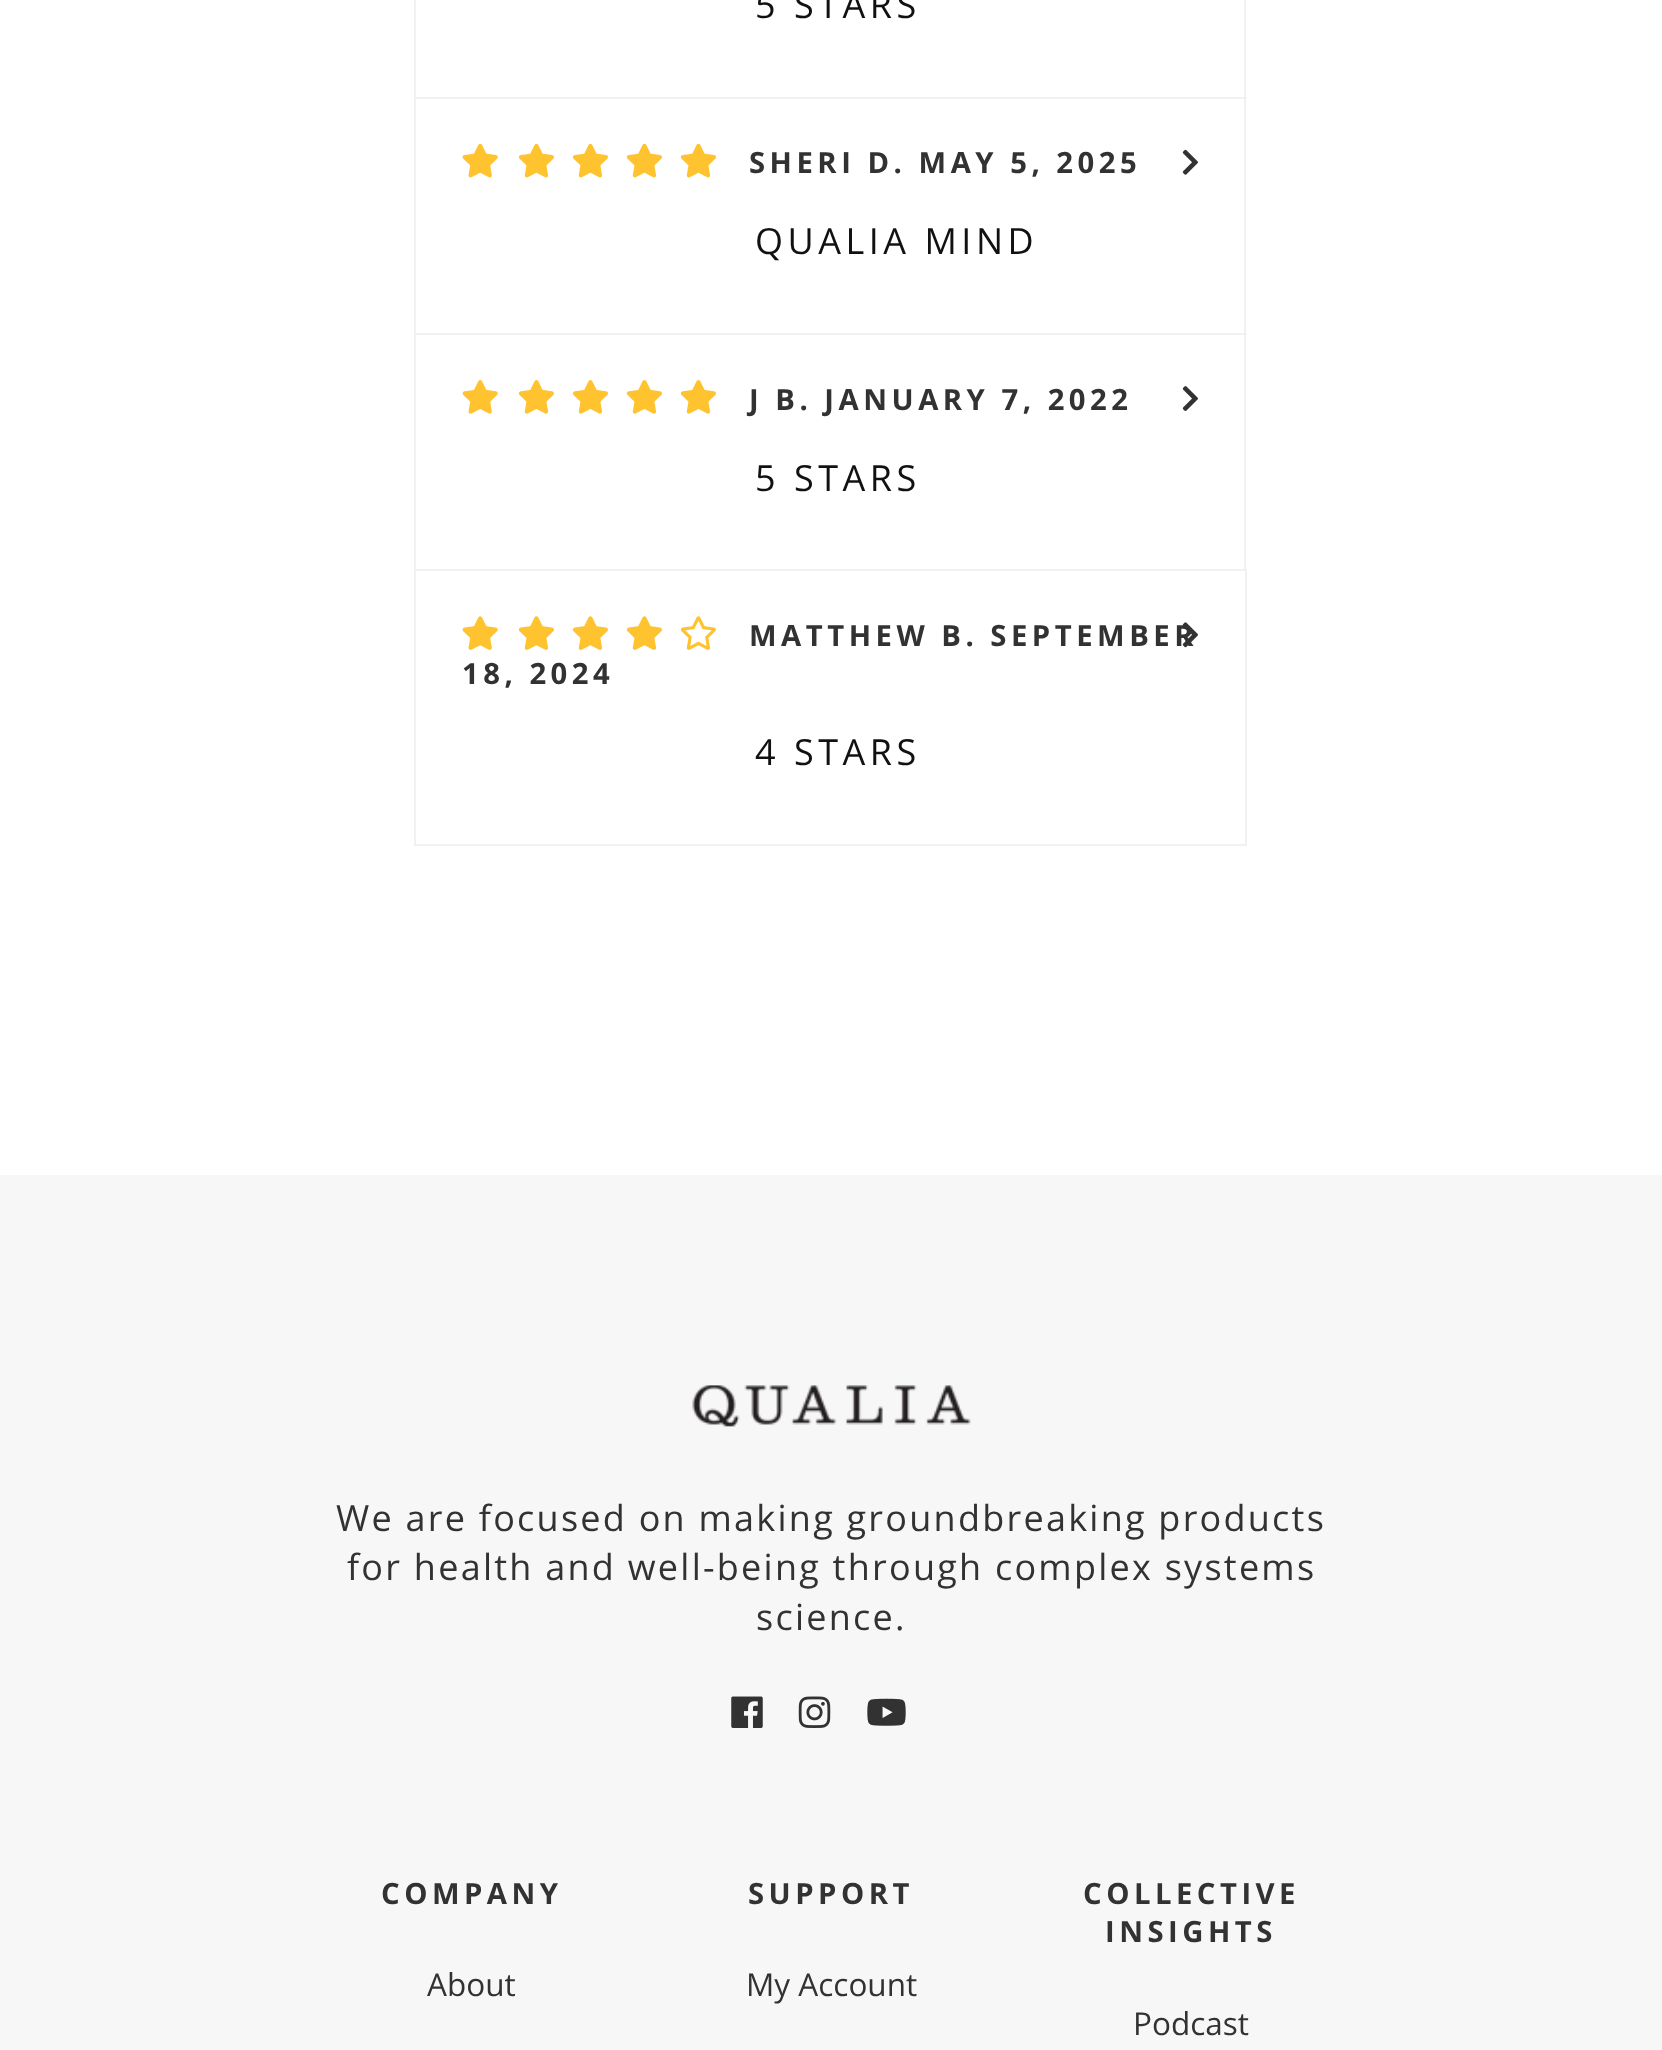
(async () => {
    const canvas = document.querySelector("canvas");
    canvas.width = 1662;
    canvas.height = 2050;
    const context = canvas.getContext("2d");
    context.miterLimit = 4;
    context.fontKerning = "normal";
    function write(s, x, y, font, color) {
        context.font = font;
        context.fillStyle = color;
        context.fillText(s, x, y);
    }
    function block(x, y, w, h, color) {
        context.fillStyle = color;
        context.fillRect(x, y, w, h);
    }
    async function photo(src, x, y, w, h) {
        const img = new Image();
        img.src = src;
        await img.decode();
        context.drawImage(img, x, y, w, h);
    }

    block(0, 0, 1662, 2050, "rgb(255, 255, 255)");
    block(1244, 0, 2, 97, "rgb(241, 241, 241)");
    block(414, 0, 2, 97, "rgb(241, 241, 241)");
    context.letterSpacing = "4.5px";
    write("5 STARS", 755, 18, "36px Open Sans", "rgb(17, 17, 17)");
    block(414, 97, 833, 2, "rgb(241, 241, 241)");
    block(1244, 97, 2, 236, "rgb(241, 241, 241)");
    block(414, 97, 2, 236, "rgb(241, 241, 241)");
    await photo("media/1.png", 462, 143, 36, 35);
    await photo("media/2.png", 518, 143, 36, 35);
    await photo("media/2.png", 572, 143, 36, 35);
    await photo("media/2.png", 626, 143, 36, 35);
    await photo("media/2.png", 680, 143, 36, 35);
    write("SHERI D. MAY 5, 2025", 749, 173, "bold 29.25px Open Sans", "rgb(50, 50, 50)");
    await photo("media/3.png", 1182, 149, 16, 26);
    write("QUALIA MIND", 755, 254, "36px Open Sans", "rgb(17, 17, 17)");
    block(414, 333, 833, 2, "rgb(241, 241, 241)");
    block(1244, 333, 2, 236, "rgb(241, 241, 241)");
    block(414, 333, 2, 236, "rgb(241, 241, 241)");
    await photo("media/4.png", 462, 380, 36, 34);
    await photo("media/5.png", 518, 380, 36, 34);
    await photo("media/5.png", 572, 380, 36, 34);
    await photo("media/5.png", 626, 380, 36, 34);
    await photo("media/5.png", 680, 380, 36, 34);
    write("J B. JANUARY 7, 2022", 749, 410, "bold 29.25px Open Sans", "rgb(50, 50, 50)");
    await photo("media/6.png", 1182, 386, 16, 25);
    write("5 STARS", 755, 491, "36px Open Sans", "rgb(17, 17, 17)");
    context.strokeStyle = "rgb(241, 241, 241)";
    context.lineWidth = 2;
    context.strokeRect(415, 570, 831, 275);
    await photo("media/7.png", 462, 616, 36, 34);
    await photo("media/8.png", 518, 616, 36, 34);
    await photo("media/8.png", 572, 616, 36, 34);
    await photo("media/8.png", 626, 616, 36, 34);
    await photo("media/9.png", 680, 616, 36, 34);
    write("MATTHEW B. SEPTEMBER", 749, 646, "bold 29.25px Open Sans", "rgb(50, 50, 50)");
    await photo("media/10.png", 1182, 622, 16, 26);
    write("18, 2024", 462, 684, "bold 29.25px Open Sans", "rgb(50, 50, 50)");
    write("4 STARS", 755, 765, "36px Open Sans", "rgb(17, 17, 17)");
    block(0, 1175, 1662, 875, "rgb(247, 247, 247)");
    await photo("media/11.png", 692, 1385, 279, 42);
    context.letterSpacing = "2.25px";
    write("We are focused on making groundbreaking products", 336, 1531, "36px Open Sans", "rgb(50, 50, 50)");
    write("for health and well-being through complex systems", 347, 1580, "36px Open Sans", "rgb(50, 50, 50)");
    write("science.", 756, 1630, "36px Open Sans", "rgb(50, 50, 50)");
    await photo("media/12.png", 731, 1696, 32, 32);
    await photo("media/13.png", 798, 1696, 33, 32);
    await photo("media/14.png", 867, 1698, 39, 28);
    context.letterSpacing = "4.5px";
    write("COMPANY", 381, 1904, "bold 29.25px Open Sans", "rgb(50, 50, 50)");
    context.letterSpacing = "0px";
    write("About", 427, 1996, "31.5px Open Sans", "rgb(50, 50, 50)");
    context.letterSpacing = "4.5px";
    write("SUPPORT", 748, 1904, "bold 29.25px Open Sans", "rgb(50, 50, 50)");
    context.letterSpacing = "0px";
    write("My Account", 746, 1996, "31.5px Open Sans", "rgb(50, 50, 50)");
    context.letterSpacing = "4.5px";
    write("COLLECTIVE", 1083, 1904, "bold 29.25px Open Sans", "rgb(50, 50, 50)");
    write("INSIGHTS", 1105, 1942, "bold 29.25px Open Sans", "rgb(50, 50, 50)");
    context.letterSpacing = "0px";
    write("Podcast", 1133, 2035, "31.5px Open Sans", "rgb(50, 50, 50)");
})();
